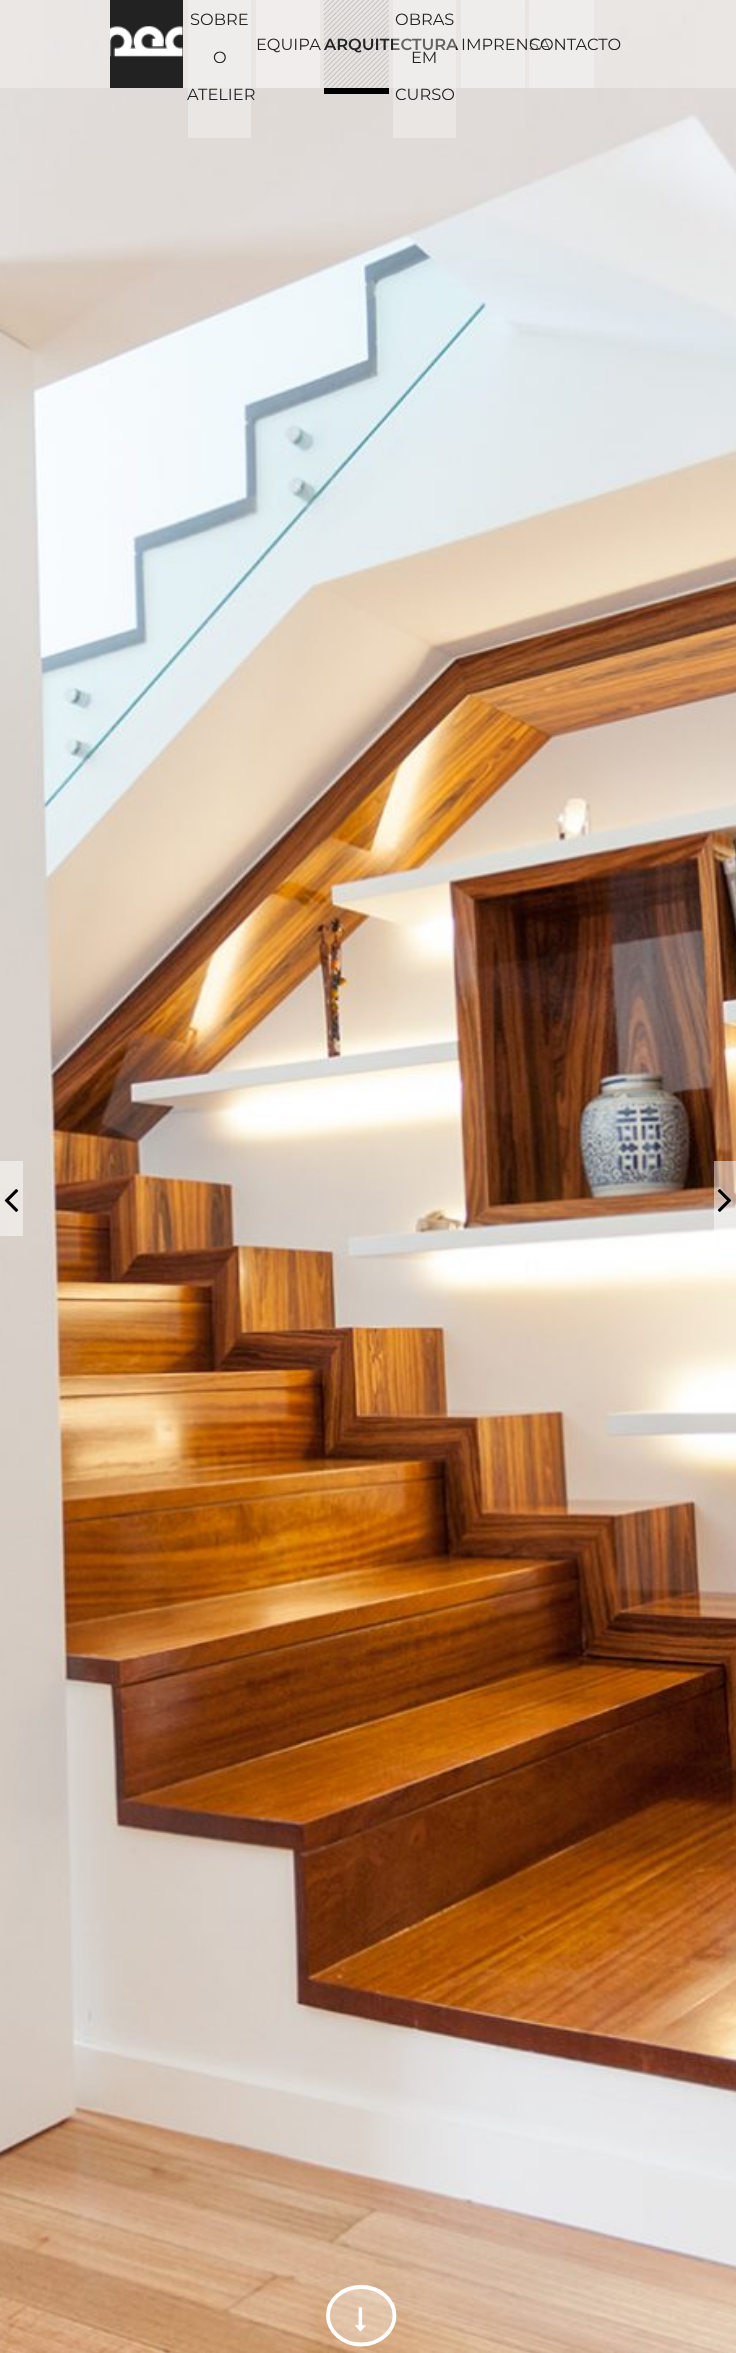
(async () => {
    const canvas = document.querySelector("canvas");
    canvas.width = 736;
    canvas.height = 2353;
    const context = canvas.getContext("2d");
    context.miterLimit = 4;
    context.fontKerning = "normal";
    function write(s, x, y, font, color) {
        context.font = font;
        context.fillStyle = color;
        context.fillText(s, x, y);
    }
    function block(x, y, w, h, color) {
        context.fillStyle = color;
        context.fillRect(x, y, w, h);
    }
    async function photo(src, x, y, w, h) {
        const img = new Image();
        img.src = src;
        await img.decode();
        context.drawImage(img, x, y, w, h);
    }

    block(0, 0, 736, 2353, "rgb(255, 255, 255)");
    await photo("media/1.png", 0, 0, 736, 2353);
    block(0, 1161, 23, 75, "rgba(255, 255, 255, 0.5)");
    await photo("media/2.png", 4, 1189, 15, 23);
    block(714, 1161, 22, 71, "rgba(255, 255, 255, 0.5)");
    await photo("media/3.png", 717, 1189, 15, 23);
    context.fillStyle = "rgba(255, 255, 255, 0.3)";
    context.beginPath();
    context.ellipse(361, 2315.5, 35, 30.5, 0, 0, Math.PI * 2);
    context.fill();
    context.beginPath();
    context.moveTo(361, 2287);
    context.bezierCurveTo(379.5, 2287, 394.5, 2299.5, 394.5, 2315.5);
    context.bezierCurveTo(394.5, 2331.5, 379.5, 2344.5, 361, 2344.5);
    context.bezierCurveTo(343, 2344.5, 328, 2331.5, 328, 2315.5);
    context.bezierCurveTo(328, 2299.5, 343, 2287, 361, 2287);
    context.closePath();
    context.strokeStyle = "rgb(255, 255, 255)";
    context.lineWidth = 3.8;
    context.stroke();
    await photo("media/4.png", 355, 2307, 11, 25);
    block(0, 0, 736, 88, "rgba(255, 255, 255, 0.3)");
    block(110, 0, 73, 88, "rgb(34, 34, 34)");
    await photo("media/5.png", 110, 26, 73, 31);
    block(188, 0, 63, 138, "rgba(255, 255, 255, 0.3)");
    write("SOBRE", 190, 25, "16.25px Montserrat", "rgb(34, 34, 34)");
    write("O", 213, 63, "16.25px Montserrat", "rgb(34, 34, 34)");
    write("ATELIER", 187, 100, "16.25px Montserrat", "rgb(34, 34, 34)");
    block(256, 0, 64, 88, "rgb(240, 237, 236)");
    write("EQUIPA", 256, 50, "16.25px Montserrat", "rgb(34, 34, 34)");
    await photo("media/6.png", 323, 0, 66, 91);
    write("ARQUITECTURA", 324, 50, "600 16.25px Montserrat", "rgb(34, 34, 34)");
    block(393, 0, 63, 138, "rgba(255, 255, 255, 0.3)");
    write("OBRAS", 395, 25, "16.25px Montserrat", "rgb(34, 34, 34)");
    write("EM", 411, 63, "16.25px Montserrat", "rgb(34, 34, 34)");
    write("CURSO", 395, 100, "16.25px Montserrat", "rgb(34, 34, 34)");
    block(324, 88, 65, 6, "rgb(0, 0, 0)");
    block(461, 0, 64, 88, "rgb(239, 237, 235)");
    write("IMPRENSA", 461, 50, "16.25px Montserrat", "rgb(34, 34, 34)");
    block(529, 0, 65, 88, "rgba(255, 255, 255, 0.3)");
    write("CONTACTO", 529, 50, "16.25px Montserrat", "rgb(34, 34, 34)");
})();
